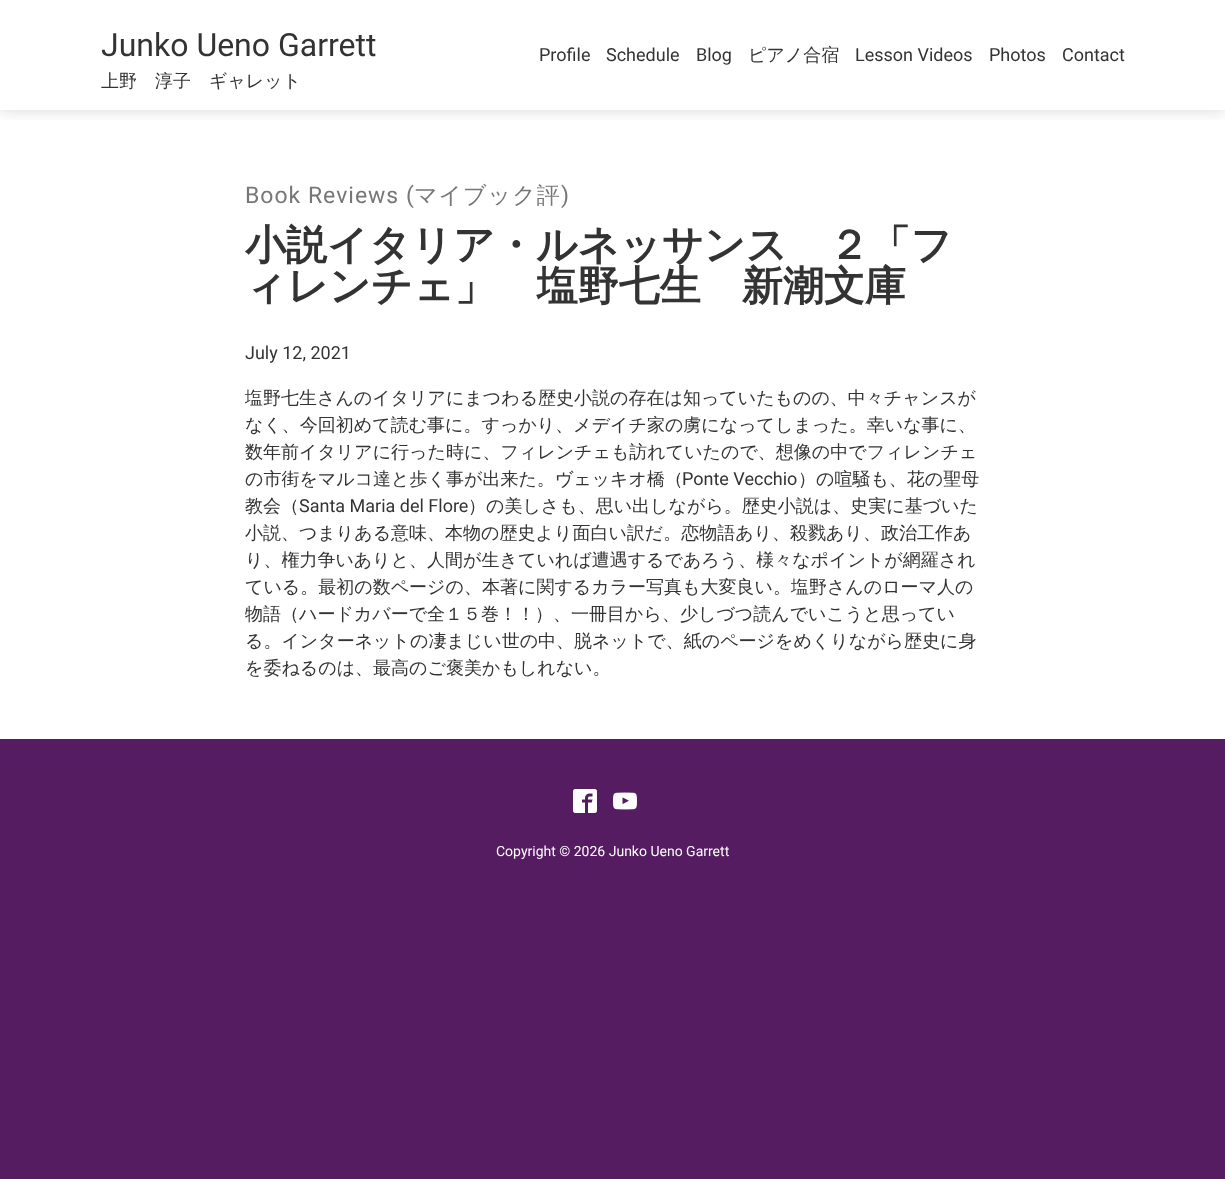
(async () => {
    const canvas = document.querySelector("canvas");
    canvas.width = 1225;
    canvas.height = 1179;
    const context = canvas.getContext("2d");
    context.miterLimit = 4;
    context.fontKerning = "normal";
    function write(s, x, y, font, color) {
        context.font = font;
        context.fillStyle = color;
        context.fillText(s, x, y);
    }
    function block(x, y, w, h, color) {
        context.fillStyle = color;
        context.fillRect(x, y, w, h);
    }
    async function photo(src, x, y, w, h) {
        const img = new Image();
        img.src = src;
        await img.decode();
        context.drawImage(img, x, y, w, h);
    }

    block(0, 0, 1225, 1179, "rgb(85, 28, 97)");
    block(0, 0, 1225, 739, "rgb(255, 255, 255)");
    context.save();
    context.beginPath();
    context.rect(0, 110, 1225, 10);
    context.clip();
    context.fillStyle = "rgba(51, 51, 51, 0.2)";
    context.filter = "blur(8px)";
    context.beginPath();
    context.rect(0, 0, 1225, 110);
    context.fill();
    context.filter = "none";
    context.restore();
    write("Junko Ueno Garrett", 101, 56, "32px Roboto", "rgb(51, 51, 51)");
    write("上野　淳子　ギャレット", 101, 87, "500 18px WenQuanYi Zen Hei", "rgb(51, 51, 51)");
    write("Profile", 539, 61, "18px Roboto", "rgb(51, 51, 51)");
    write("Schedule", 606, 61, "18px Roboto", "rgb(51, 51, 51)");
    write("Blog", 696, 61, "18px Roboto", "rgb(51, 51, 51)");
    write("ピアノ合宿", 748, 61, "500 18px WenQuanYi Zen Hei", "rgb(51, 51, 51)");
    write("Lesson Videos", 855, 61, "18px Roboto", "rgb(51, 51, 51)");
    write("Photos", 989, 61, "18px Roboto", "rgb(51, 51, 51)");
    write("Contact", 1062, 61, "18px Roboto", "rgb(51, 51, 51)");
    context.letterSpacing = "1px";
    write("Book Reviews (", 245, 203, "23px Roboto", "rgb(119, 119, 119)");
    write("マイブック評", 414, 203, "500 23px WenQuanYi Zen Hei", "rgb(119, 119, 119)");
    write(")", 561, 203, "23px Roboto", "rgb(119, 119, 119)");
    context.letterSpacing = "0px";
    write("小説イタリア・ルネッサンス　２「フ", 245, 259, "bold 41px WenQuanYi Zen Hei", "rgb(51, 51, 51)");
    write("ィレンチェ」　塩野七生　新潮文庫", 245, 300, "bold 41px WenQuanYi Zen Hei", "rgb(51, 51, 51)");
    write("July 12, 2021", 245, 359, "18px Roboto", "rgb(51, 51, 51)");
    write("塩野七生さんのイタリアにまつわる歴史小説の存在は知っていたものの、中々チャンスが", 245, 404, "500 18px WenQuanYi Zen Hei", "rgb(51, 51, 51)");
    write("なく、今回初めて読む事に。すっかり、メデイチ家の虜になってしまった。幸いな事に、", 245, 431, "500 18px WenQuanYi Zen Hei", "rgb(51, 51, 51)");
    write("数年前イタリアに行った時に、フィレンチェも訪れていたので、想像の中でフィレンチェ", 245, 458, "500 18px WenQuanYi Zen Hei", "rgb(51, 51, 51)");
    write("の市街をマルコ達と歩く事が出来た。ヴェッキオ橋（", 245, 485, "500 18px WenQuanYi Zen Hei", "rgb(51, 51, 51)");
    write("Ponte Vecchio", 682, 485, "18px Roboto", "rgb(51, 51, 51)");
    write("）の喧騒も、花の聖母", 798, 485, "500 18px WenQuanYi Zen Hei", "rgb(51, 51, 51)");
    write("教会（", 245, 512, "500 18px WenQuanYi Zen Hei", "rgb(51, 51, 51)");
    write("Santa Maria del Flore", 299, 512, "18px Roboto", "rgb(51, 51, 51)");
    write("）の美しさも、思い出しながら。歴史小説は、史実に基づいた", 468, 512, "500 18px WenQuanYi Zen Hei", "rgb(51, 51, 51)");
    write("小説、つまりある意味、本物の歴史より面白い訳だ。恋物語あり、殺戮あり、政治工作あ", 245, 539, "500 18px WenQuanYi Zen Hei", "rgb(51, 51, 51)");
    write("り、権力争いありと、人間が生きていれば遭遇するであろう、様々なポイントが網羅され", 245, 566, "500 18px WenQuanYi Zen Hei", "rgb(51, 51, 51)");
    write("ている。最初の数ページの、本著に関するカラー写真も大変良い。塩野さんのローマ人の", 245, 593, "500 18px WenQuanYi Zen Hei", "rgb(51, 51, 51)");
    write("物語（ハードカバーで全１５巻！！）、一冊目から、少しづつ読んでいこうと思ってい", 245, 620, "500 18px WenQuanYi Zen Hei", "rgb(51, 51, 51)");
    write("る。インターネットの凄まじい世の中、脱ネットで、紙のページをめくりながら歴史に身", 245, 647, "500 18px WenQuanYi Zen Hei", "rgb(51, 51, 51)");
    write("を委ねるのは、最高のご褒美かもしれない。", 245, 674, "500 18px WenQuanYi Zen Hei", "rgb(51, 51, 51)");
    await photo("media/1.png", 573, 789, 24, 24);
    await photo("media/2.png", 613, 792, 24, 18);
    write("Copyright © 2026 Junko Ueno Garrett", 496, 856, "14px Roboto", "rgb(255, 255, 255)");
})();
